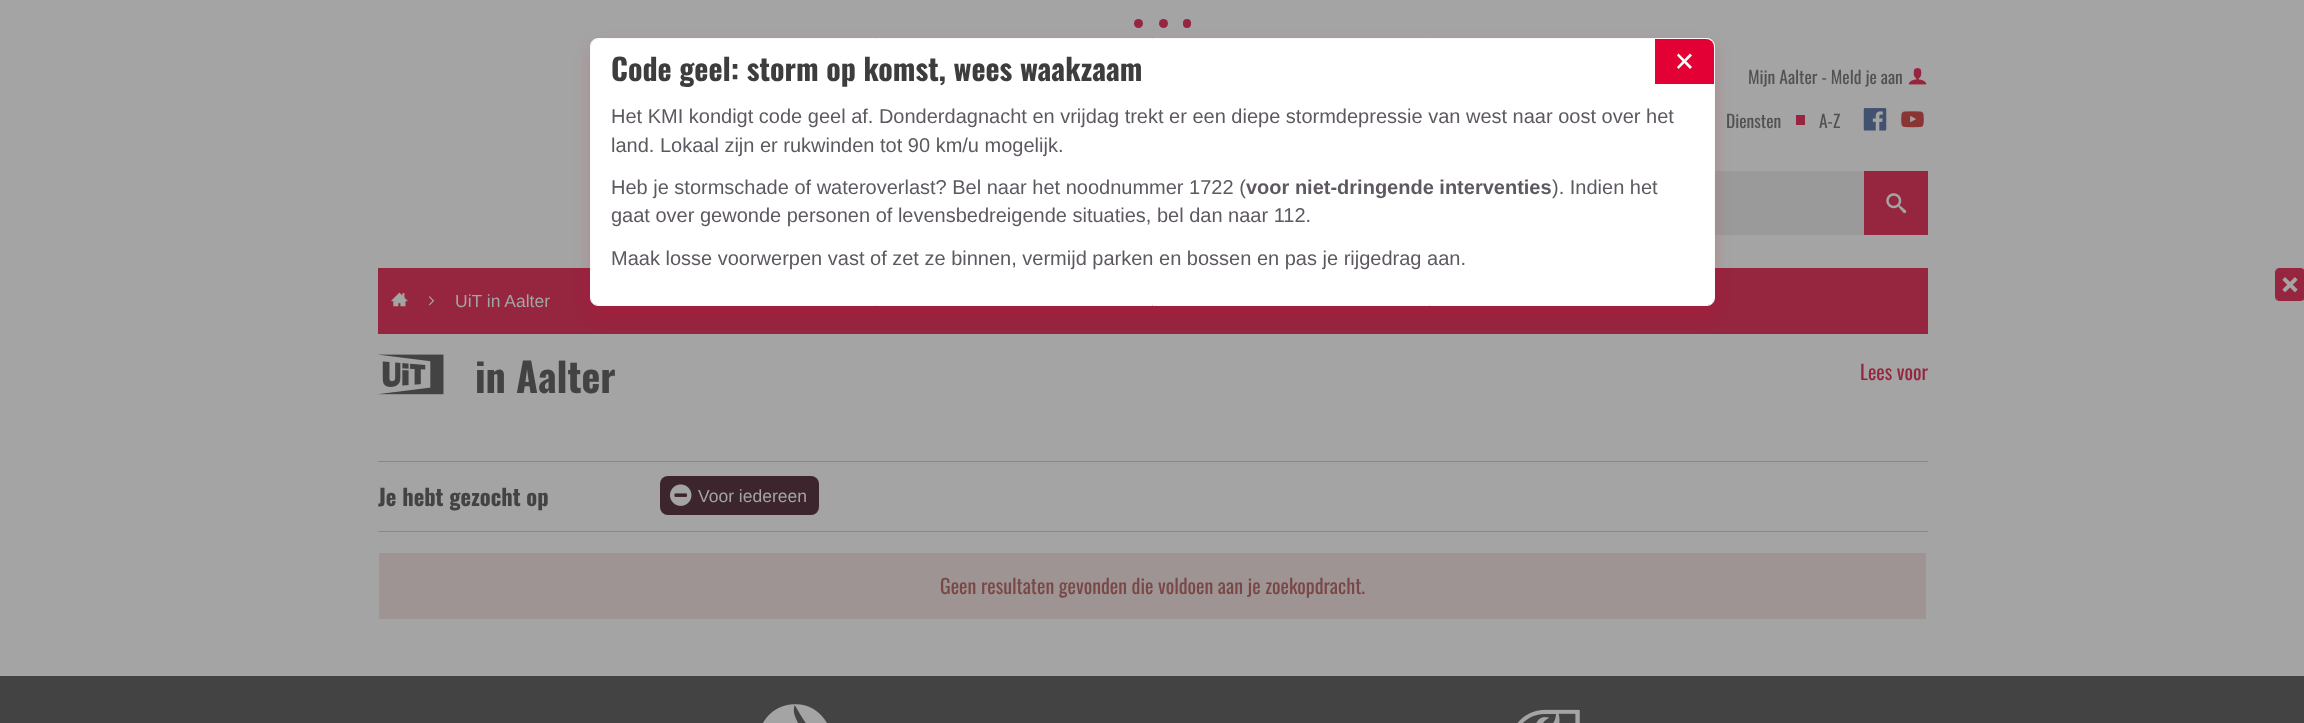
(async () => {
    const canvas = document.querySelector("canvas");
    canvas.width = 2304;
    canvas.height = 723;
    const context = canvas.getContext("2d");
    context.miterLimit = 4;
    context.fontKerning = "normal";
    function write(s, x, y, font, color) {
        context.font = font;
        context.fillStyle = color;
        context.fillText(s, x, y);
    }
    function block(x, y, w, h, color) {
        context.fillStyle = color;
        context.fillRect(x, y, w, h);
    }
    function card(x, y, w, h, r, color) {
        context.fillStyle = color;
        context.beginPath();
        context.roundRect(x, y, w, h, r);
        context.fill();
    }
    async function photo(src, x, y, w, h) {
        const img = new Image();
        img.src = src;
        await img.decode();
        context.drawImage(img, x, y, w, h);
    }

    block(0, 0, 2304, 723, "rgb(164, 164, 164)");
    context.fillStyle = "rgb(150, 37, 63)";
    context.beginPath();
    context.arc(1138.5, 23.5, 4.5, 0, Math.PI * 2);
    context.fill();
    context.beginPath();
    context.arc(1163.5, 23.5, 4.5, 0, Math.PI * 2);
    context.fill();
    card(1183, 19, 8, 9, 4, "rgb(150, 37, 63)");
    block(1715, 171, 149, 64, "rgb(154, 154, 154)");
    block(378, 268, 1550, 66, "rgb(150, 37, 63)");
    context.fillStyle = "rgba(226, 0, 52, 0.17)";
    context.filter = "blur(7.5px)";
    context.beginPath();
    context.roundRect(590, 45, 1125, 269, 8);
    context.fill();
    context.filter = "none";
    card(591, 39, 1123, 266, 6, "rgb(255, 255, 255)");
    context.beginPath();
    context.roundRect(590.5, 38.5, 1124, 267, 7.5);
    context.strokeStyle = "rgb(250, 250, 250)";
    context.stroke();
    write("Code geel: storm op komst, wees waakzaam", 611, 81, "bold 30px Oswald", "rgb(61, 61, 61)");
    context.fillStyle = "rgb(226, 0, 52)";
    context.beginPath();
    context.roundRect(1655, 39, 59, 45, [0, 8, 0, 0]);
    context.fill();
    context.fillStyle = "rgb(255, 255, 255)";
    context.beginPath();
    context.moveTo(1678.5, 53.5);
    context.lineTo(1692, 67);
    context.lineTo(1690, 69);
    context.lineTo(1677, 55.5);
    context.closePath();
    context.fill();
    context.beginPath();
    context.moveTo(1677, 67);
    context.lineTo(1690, 53.5);
    context.lineTo(1692, 55.5);
    context.lineTo(1678.5, 69);
    context.closePath();
    context.fill();
    write("Het KMI kondigt code geel af. Donderdagnacht en vrijdag trekt er een diepe stormdepressie van west naar oost over het", 611, 123, "20px Liberation Sans", "rgb(94, 88, 96)");
    write("land. Lokaal zijn er rukwinden tot 90 km/u mogelijk.", 611, 152, "20px Liberation Sans", "rgb(94, 88, 96)");
    write("Heb je stormschade of wateroverlast? Bel naar het noodnummer 1722 (", 611, 194, "20px Liberation Sans", "rgb(94, 88, 96)");
    write("voor niet-dringende interventies", 1246, 194, "bold 20px Liberation Sans", "rgb(94, 88, 96)");
    write("). Indien het", 1552, 194, "20px Liberation Sans", "rgb(94, 88, 96)");
    write("gaat over gewonde personen of levensbedreigende situaties, bel dan naar 112.", 611, 222, "20px Liberation Sans", "rgb(94, 88, 96)");
    write("Maak losse voorwerpen vast of zet ze binnen, vermijd parken en bossen en pas je rijgedrag aan.", 611, 265, "20px Liberation Sans", "rgb(94, 88, 96)");
    write("Mijn Aalter - Meld je aan", 1748, 84, "17.5px Oswald", "rgb(84, 81, 85)");
    await photo("media/1.png", 1908, 68, 19, 17);
    write("Diensten", 1726, 128, "17.5px Oswald", "rgb(84, 81, 85)");
    block(1796, 115, 9, 10, "rgb(150, 37, 63)");
    write("A-Z", 1819, 128, "17.5px Oswald", "rgb(84, 81, 85)");
    await photo("media/2.png", 1863, 108, 24, 23);
    await photo("media/3.png", 1901, 111, 23, 17);
    block(1864, 171, 64, 64, "rgb(150, 37, 63)");
    await photo("media/4.png", 1886, 193, 21, 21);
    await photo("media/5.png", 391, 292, 17, 15);
    await photo("media/6.png", 428, 296, 7, 10);
    write("UiT in Aalter", 455, 307, "17.5px Liberation Sans", "rgb(164, 164, 164)");
    await photo("media/7.png", 377, 354, 67, 41);
    write("in Aalter", 475, 393, "bold 40px Oswald", "rgb(67, 67, 67)");
    write("Lees voor", 1860, 380, "20px Oswald", "rgb(150, 37, 63)");
    card(2276, 269, 28, 31, 2.5, "rgb(150, 37, 63)");
    context.beginPath();
    context.roundRect(2275.5, 268.5, 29, 32, 3.5);
    context.strokeStyle = "rgb(150, 37, 63)";
    context.stroke();
    await photo("media/8.png", 2282, 277, 16, 16);
    block(378, 461, 1550, 1, "rgb(137, 137, 137)");
    block(378, 531, 1550, 1, "rgb(137, 137, 137)");
    write("Je hebt gezocht op", 378, 506, "bold 22.5px Oswald", "rgb(67, 67, 67)");
    card(660, 476, 159, 39, 8, "rgb(61, 37, 46)");
    await photo("media/9.png", 670, 484, 22, 22);
    write("Voor iedereen", 698, 502, "17.5px Liberation Sans", "rgb(164, 164, 164)");
    block(379, 553, 1547, 66, "rgb(158, 148, 148)");
    write("Geen resultaten gevonden die voldoen aan je zoekopdracht.", 940, 594, "20px Oswald", "rgb(121, 71, 70)");
    block(0, 676, 2304, 47, "rgb(67, 67, 67)");
    await photo("media/10.png", 763, 704, 64, 19);
    await photo("media/11.png", 1517, 709, 63, 14);
})();
